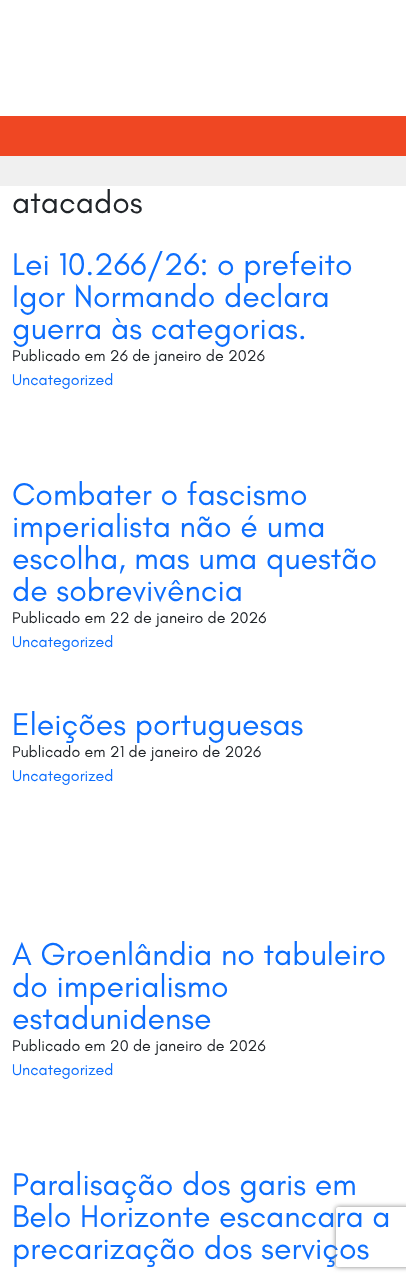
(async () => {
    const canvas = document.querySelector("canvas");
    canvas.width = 406;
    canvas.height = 1281;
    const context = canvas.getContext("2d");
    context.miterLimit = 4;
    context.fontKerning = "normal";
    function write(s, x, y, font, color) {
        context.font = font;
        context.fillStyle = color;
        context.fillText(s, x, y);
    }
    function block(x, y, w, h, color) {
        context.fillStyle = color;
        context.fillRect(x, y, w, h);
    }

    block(0, 0, 406, 1281, "rgb(255, 255, 255)");
    block(0, 116, 406, 40, "rgb(239, 71, 35)");
    block(0, 156, 406, 30, "rgb(240, 240, 240)");
    write("atacados", 12, 213, "32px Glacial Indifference", "rgb(33, 37, 41)");
    write("Lei 10.266/26: o prefeito", 12, 275, "32px Glacial Indifference", "rgb(13, 110, 253)");
    write("Igor Normando declara", 12, 307, "32px Glacial Indifference", "rgb(13, 110, 253)");
    write("guerra às categorias.", 12, 339, "32px Glacial Indifference", "rgb(13, 110, 253)");
    write("Publicado em 26 de janeiro de 2026", 12, 361, "16px Glacial Indifference", "rgb(33, 37, 41)");
    write("Uncategorized", 12, 385, "16px Glacial Indifference", "rgb(13, 110, 253)");
    write("Combater o fascismo", 12, 505, "32px Glacial Indifference", "rgb(13, 110, 253)");
    write("imperialista não é uma", 12, 537, "32px Glacial Indifference", "rgb(13, 110, 253)");
    write("escolha, mas uma questão", 12, 569, "32px Glacial Indifference", "rgb(13, 110, 253)");
    write("de sobrevivência", 12, 601, "32px Glacial Indifference", "rgb(13, 110, 253)");
    write("Publicado em 22 de janeiro de 2026", 12, 623, "16px Glacial Indifference", "rgb(33, 37, 41)");
    write("Uncategorized", 12, 647, "16px Glacial Indifference", "rgb(13, 110, 253)");
    write("Eleições portuguesas", 12, 735, "32px Glacial Indifference", "rgb(13, 110, 253)");
    write("Publicado em 21 de janeiro de 2026", 12, 757, "16px Glacial Indifference", "rgb(33, 37, 41)");
    write("Uncategorized", 12, 781, "16px Glacial Indifference", "rgb(13, 110, 253)");
    write("A Groenlândia no tabuleiro", 12, 965, "32px Glacial Indifference", "rgb(13, 110, 253)");
    write("do imperialismo", 12, 997, "32px Glacial Indifference", "rgb(13, 110, 253)");
    write("estadunidense", 12, 1029, "32px Glacial Indifference", "rgb(13, 110, 253)");
    write("Publicado em 20 de janeiro de 2026", 12, 1051, "16px Glacial Indifference", "rgb(33, 37, 41)");
    write("Uncategorized", 12, 1075, "16px Glacial Indifference", "rgb(13, 110, 253)");
    write("Paralisação dos garis em", 12, 1195, "32px Glacial Indifference", "rgb(13, 110, 253)");
    write("Belo Horizonte escancara a", 12, 1227, "32px Glacial Indifference", "rgb(13, 110, 253)");
    write("precarização dos serviços", 12, 1259, "32px Glacial Indifference", "rgb(13, 110, 253)");
    context.save();
    context.beginPath();
    context.moveTo(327, 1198);
    context.lineTo(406, 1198);
    context.lineTo(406, 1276);
    context.lineTo(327, 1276);
    context.closePath();
    context.moveTo(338, 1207);
    context.lineTo(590, 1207);
    context.bezierCurveTo(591, 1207, 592, 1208, 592, 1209);
    context.lineTo(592, 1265);
    context.bezierCurveTo(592, 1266, 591, 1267, 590, 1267);
    context.lineTo(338, 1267);
    context.bezierCurveTo(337, 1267, 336, 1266, 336, 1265);
    context.lineTo(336, 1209);
    context.bezierCurveTo(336, 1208, 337, 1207, 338, 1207);
    context.closePath();
    context.clip("evenodd");
    context.fillStyle = "rgb(128, 128, 128)";
    context.filter = "blur(2.5px)";
    context.beginPath();
    context.roundRect(336, 1207, 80, 60, 2);
    context.fill();
    context.filter = "none";
    context.restore();
})();
